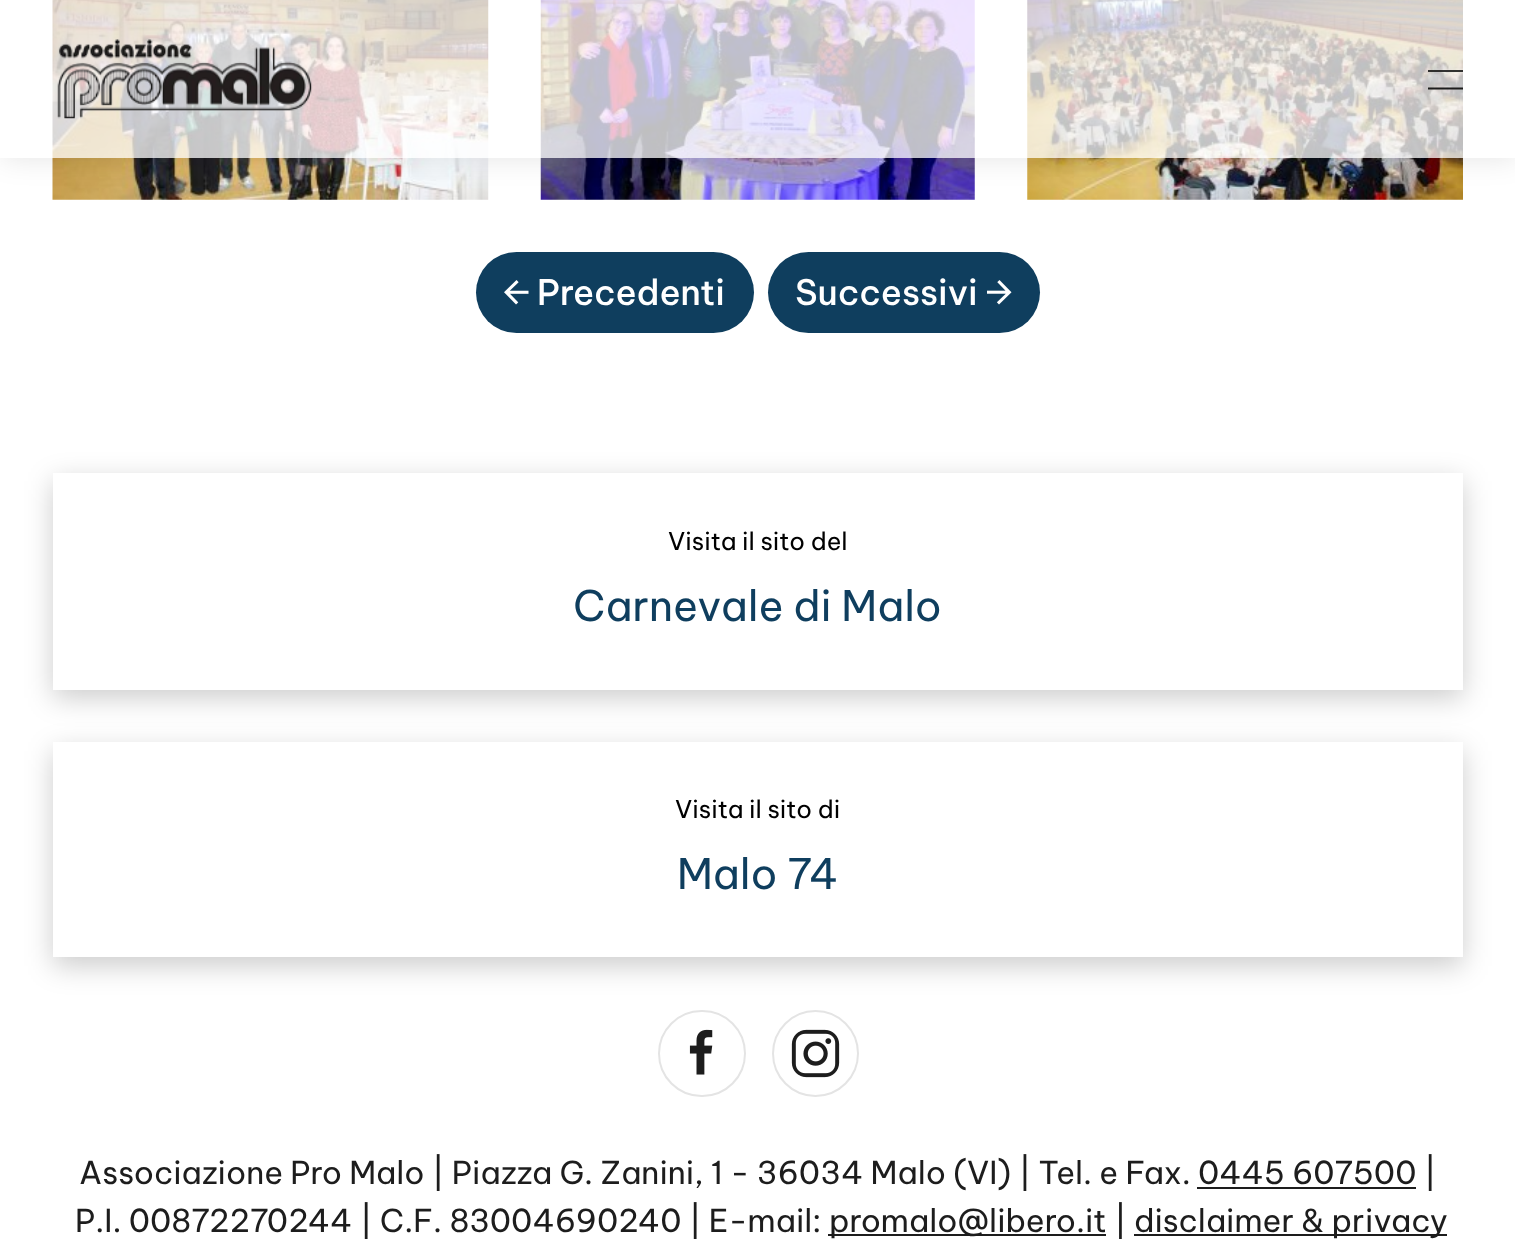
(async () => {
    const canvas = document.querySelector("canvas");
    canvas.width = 1515;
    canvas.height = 1239;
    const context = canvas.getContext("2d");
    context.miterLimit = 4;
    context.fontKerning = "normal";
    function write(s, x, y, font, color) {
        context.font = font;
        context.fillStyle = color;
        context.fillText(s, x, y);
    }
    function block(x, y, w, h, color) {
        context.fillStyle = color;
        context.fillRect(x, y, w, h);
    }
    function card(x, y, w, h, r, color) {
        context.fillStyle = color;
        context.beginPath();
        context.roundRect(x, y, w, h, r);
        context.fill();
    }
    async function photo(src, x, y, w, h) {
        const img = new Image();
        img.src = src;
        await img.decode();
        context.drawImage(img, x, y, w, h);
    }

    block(0, 0, 1515, 1239, "rgb(255, 255, 255)");
    await photo("media/2.png", 52, 0, 437, 200);
    await photo("media/3.png", 540, 0, 435, 200);
    await photo("media/4.png", 1027, 0, 436, 200);
    context.save();
    context.beginPath();
    context.moveTo(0, 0);
    context.lineTo(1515, 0);
    context.lineTo(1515, 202);
    context.lineTo(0, 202);
    context.closePath();
    context.moveTo(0, 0);
    context.lineTo(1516, 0);
    context.lineTo(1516, 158);
    context.lineTo(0, 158);
    context.closePath();
    context.clip("evenodd");
    context.fillStyle = "rgba(0, 0, 0, 0.1)";
    context.filter = "blur(14px)";
    context.beginPath();
    context.rect(2, 2, 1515, 157);
    context.fill();
    context.filter = "none";
    context.restore();
    block(2, 0, 1513, 158, "rgba(255, 255, 255, 0.75)");
    await photo("media/1.png", 57, 39, 256, 80);
    block(1428, 70, 35, 2, "rgba(29, 29, 29, 0.9)");
    context.beginPath();
    context.moveTo(1428, 88.5);
    context.lineTo(1463, 88.5);
    context.strokeStyle = "rgb(29, 29, 29)";
    context.lineWidth = 1.8;
    context.stroke();
    card(476, 252, 278, 81, 40.5, "rgb(15, 62, 94)");
    await photo("media/5.png", 504, 280, 25, 25);
    write("Precedenti", 537, 305, "500 35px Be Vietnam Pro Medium", "rgb(255, 255, 255)");
    card(768, 252, 272, 81, 40.5, "rgb(15, 62, 94)");
    write("Successivi", 795, 305, "500 35px Be Vietnam Pro Medium", "rgb(255, 255, 255)");
    await photo("media/6.png", 987, 280, 25, 25);
    context.save();
    context.beginPath();
    context.moveTo(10, 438);
    context.lineTo(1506, 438);
    context.lineTo(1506, 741);
    context.lineTo(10, 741);
    context.closePath();
    context.moveTo(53, 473);
    context.lineTo(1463, 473);
    context.lineTo(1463, 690);
    context.lineTo(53, 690);
    context.closePath();
    context.clip("evenodd");
    context.fillStyle = "rgba(0, 0, 0, 0.2)";
    context.filter = "blur(14px)";
    context.beginPath();
    context.rect(53, 481, 1410, 217);
    context.fill();
    context.filter = "none";
    context.restore();
    block(53, 689, 1410, 1, "rgba(255, 255, 255, 0.7)");
    write("Visita il sito del", 668, 550, "24.5px Be Vietnam Pro", "rgb(0, 0, 0)");
    write("Carnevale di Malo", 573, 621, "42px Be Vietnam Pro", "rgb(15, 62, 94)");
    context.save();
    context.beginPath();
    context.moveTo(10, 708);
    context.lineTo(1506, 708);
    context.lineTo(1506, 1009);
    context.lineTo(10, 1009);
    context.closePath();
    context.moveTo(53, 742);
    context.lineTo(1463, 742);
    context.lineTo(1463, 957);
    context.lineTo(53, 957);
    context.closePath();
    context.clip("evenodd");
    context.fillStyle = "rgba(0, 0, 0, 0.2)";
    context.filter = "blur(14px)";
    context.beginPath();
    context.rect(53, 751, 1410, 215);
    context.fill();
    context.filter = "none";
    context.restore();
    write("Visita il sito di", 675, 818, "24.5px Be Vietnam Pro", "rgb(0, 0, 0)");
    write("Malo 74", 677, 889, "42px Be Vietnam Pro", "rgb(15, 62, 94)");
    context.beginPath();
    context.roundRect(659, 1011, 86, 85, 42.5);
    context.strokeStyle = "rgb(228, 228, 228)";
    context.lineWidth = 2;
    context.stroke();
    await photo("media/7.png", 689, 1029, 24, 46);
    context.beginPath();
    context.arc(815.5, 1053.5, 42.5, 0, Math.PI * 2);
    context.stroke();
    await photo("media/8.png", 791, 1029, 49, 49);
    write("Associazione Pro Malo | Piazza G. Zanini, 1 - 36034 Malo (VI) | Tel. e Fax. 0445 607500 |", 79, 1184, "31.5px Be Vietnam Pro", "rgb(29, 29, 29)");
    block(1197, 1187, 219, 2, "rgb(29, 29, 29)");
    write("P.I. 00872270244 | C.F. 83004690240 | E-mail:", 75, 1232, "31.5px Be Vietnam Pro", "rgb(29, 29, 29)");
    block(828, 1234, 278, 2, "rgb(29, 29, 29)");
    write("promalo@libero.it |", 829, 1232, "31.5px Be Vietnam Pro", "rgb(29, 29, 29)");
    block(1134, 1234, 313, 2, "rgb(29, 29, 29)");
    write("disclaimer & privacy", 1134, 1232, "31.5px Be Vietnam Pro", "rgb(29, 29, 29)");
})();
